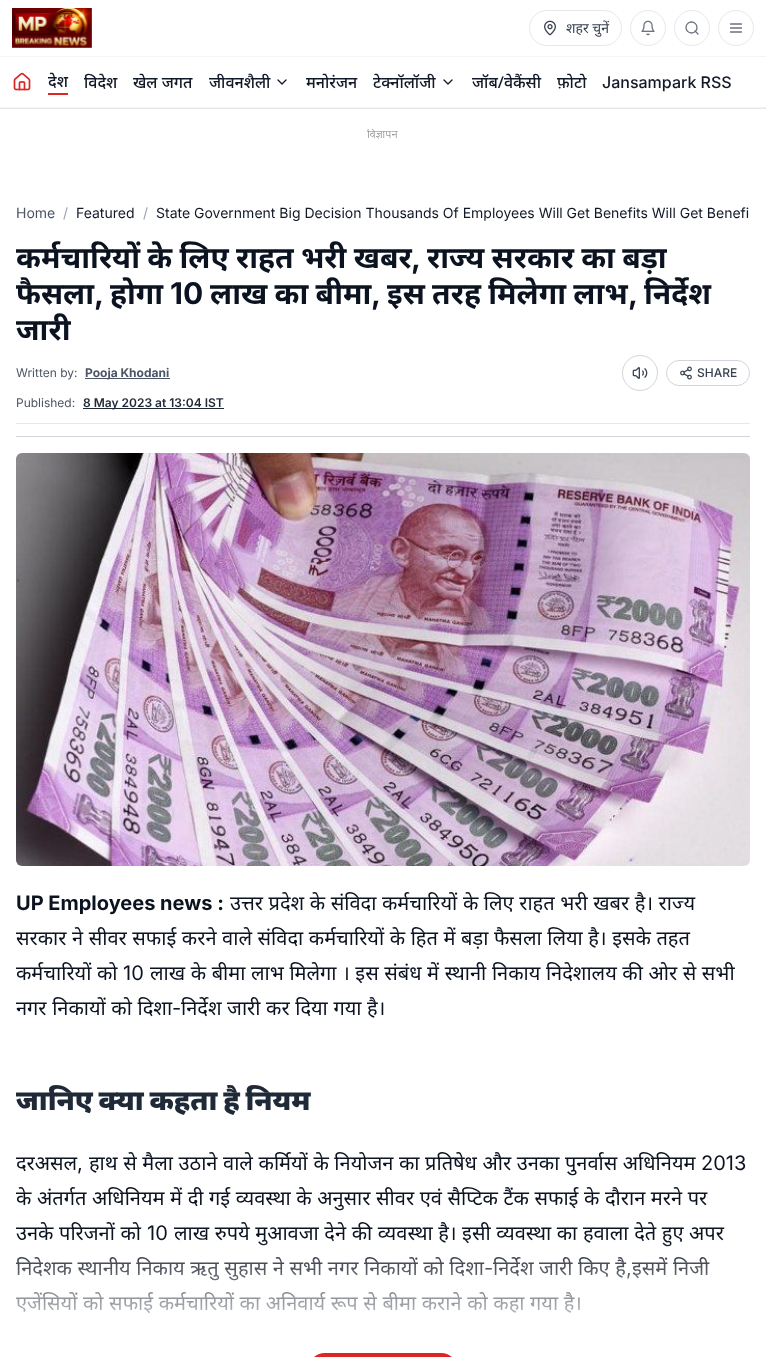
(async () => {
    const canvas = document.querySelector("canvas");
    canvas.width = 766;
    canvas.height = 1357;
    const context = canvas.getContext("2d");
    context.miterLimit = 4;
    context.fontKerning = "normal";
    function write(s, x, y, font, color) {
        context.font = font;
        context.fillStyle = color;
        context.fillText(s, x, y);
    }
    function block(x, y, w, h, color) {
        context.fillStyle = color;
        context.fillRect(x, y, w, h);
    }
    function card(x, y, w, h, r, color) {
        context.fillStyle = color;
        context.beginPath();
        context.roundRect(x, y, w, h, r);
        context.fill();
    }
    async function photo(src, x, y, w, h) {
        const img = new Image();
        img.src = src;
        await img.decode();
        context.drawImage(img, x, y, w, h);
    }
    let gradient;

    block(0, 0, 766, 1357, "rgb(255, 255, 255)");
    block(0, 108, 766, 1, "rgb(229, 231, 235)");
    await photo("media/1.png", 12, 8, 80, 40);
    context.beginPath();
    context.arc(648, 28, 17.5, 0, Math.PI * 2);
    context.strokeStyle = "rgb(229, 231, 235)";
    context.stroke();
    await photo("media/2.png", 641, 20, 14, 16);
    context.beginPath();
    context.arc(692, 28, 17.5, 0, Math.PI * 2);
    context.stroke();
    context.beginPath();
    context.arc(691.5, 27.5, 5.5, 0, Math.PI * 2);
    context.strokeStyle = "rgb(107, 114, 128)";
    context.lineWidth = 1.3;
    context.stroke();
    context.beginPath();
    context.arc(736, 28, 17.5, 0, Math.PI * 2);
    context.strokeStyle = "rgb(229, 231, 235)";
    context.lineWidth = 1;
    context.stroke();
    context.beginPath();
    context.moveTo(698, 34);
    context.lineTo(695, 31);
    context.moveTo(730.5, 24);
    context.lineTo(741.5, 24);
    context.moveTo(730.5, 28);
    context.lineTo(741.5, 28);
    context.moveTo(730.5, 32);
    context.lineTo(741.5, 32);
    context.strokeStyle = "rgb(107, 114, 128)";
    context.lineWidth = 1.3;
    context.lineCap = "round";
    context.lineJoin = "round";
    context.stroke();
    context.beginPath();
    context.roundRect(529.5, 10.5, 92, 35, 17.5);
    context.strokeStyle = "rgb(229, 231, 235)";
    context.lineWidth = 1;
    context.lineJoin = "miter";
    context.stroke();
    await photo("media/3.png", 544, 20, 12, 16);
    write("शहर चुनें", 566, 33, "14px Noto Sans", "rgb(55, 65, 81)");
    block(0, 56, 766, 1, "rgb(243, 244, 246)");
    await photo("media/4.png", 13, 72, 18, 19);
    block(48, 93, 20, 2, "rgb(220, 38, 38)");
    write("देश", 48, 87, "500 16px Noto Sans", "rgb(17, 24, 39)");
    write("विदेश", 84, 88, "500 16px Noto Sans", "rgb(17, 24, 39)");
    write("खेल जगत", 133, 88, "500 16px Noto Sans", "rgb(17, 24, 39)");
    write("जीवनशैली", 209, 88, "500 16px Noto Sans", "rgb(17, 24, 39)");
    context.beginPath();
    context.moveTo(278, 80);
    context.lineTo(282, 84);
    context.lineTo(286, 80);
    context.strokeStyle = "rgb(17, 24, 39)";
    context.lineWidth = 1.3;
    context.lineJoin = "round";
    context.stroke();
    write("मनोरंजन", 306, 88, "500 16px Noto Sans", "rgb(17, 24, 39)");
    write("टेक्नॉलॉजी", 373, 88, "500 16px Noto Sans", "rgb(17, 24, 39)");
    context.beginPath();
    context.moveTo(444, 80);
    context.lineTo(448, 84);
    context.lineTo(452, 80);
    context.stroke();
    write("जॉब/वेकैंसी", 472, 88, "500 16px Noto Sans", "rgb(17, 24, 39)");
    write("फ़ोटो", 557, 88, "500 16px Noto Sans", "rgb(17, 24, 39)");
    write("Jansampark RSS", 602, 88, "500 16px Inter", "rgb(17, 24, 39)");
    block(0, 107, 766, 1, "rgb(243, 244, 246)");
    context.save();
    context.beginPath();
    context.rect(223, 129, 320, 50);
    context.clip();
    context.letterSpacing = "0.25px";
    write("विज्ञापन", 367, 138, "300 11px Noto Sans", "rgb(119, 119, 119)");
    context.restore();
    write("Home", 16, 218, "14px Inter", "rgb(75, 85, 99)");
    write("/", 63, 218, "14px Inter", "rgb(156, 163, 175)");
    write("Featured", 76, 218, "14px Inter", "rgb(17, 24, 39)");
    write("/", 143, 218, "14px Inter", "rgb(156, 163, 175)");
    write("State Government Big Decision Thousands Of Employees Will Get Benefits Will Get Benefi", 156, 218, "14px Inter", "rgb(17, 24, 39)");
    context.wordSpacing = "-0.5px";
    write("कर्मचारियों के लिए राहत भरी खबर", 16, 268, "bold 30px Noto Sans", "rgb(11, 18, 32)");
    context.wordSpacing = "0px";
    write(",", 411, 268, "bold 30px Inter", "rgb(11, 18, 32)");
    context.wordSpacing = "-0.5px";
    write("राज्य सरकार का बड़ा", 427, 268, "bold 30px Noto Sans", "rgb(11, 18, 32)");
    context.wordSpacing = "0px";
    write("फैसला", 16, 304, "bold 30px Noto Sans", "rgb(11, 18, 32)");
    write(",", 94, 304, "bold 30px Inter", "rgb(11, 18, 32)");
    write("होगा", 110, 304, "bold 30px Noto Sans", "rgb(11, 18, 32)");
    write("10", 170, 304, "bold 30px Inter", "rgb(11, 18, 32)");
    context.wordSpacing = "-0.5px";
    write("लाख का बीमा", 210, 304, "bold 30px Noto Sans", "rgb(11, 18, 32)");
    context.wordSpacing = "0px";
    write(",", 371, 304, "bold 30px Inter", "rgb(11, 18, 32)");
    context.wordSpacing = "-0.5px";
    write("इस तरह मिलेगा लाभ", 387, 304, "bold 30px Noto Sans", "rgb(11, 18, 32)");
    context.wordSpacing = "0px";
    write(",", 628, 304, "bold 30px Inter", "rgb(11, 18, 32)");
    write("निर्देश", 644, 304, "bold 30px Noto Sans", "rgb(11, 18, 32)");
    write("जारी", 16, 340, "bold 30px Noto Sans", "rgb(11, 18, 32)");
    write("Written by:", 16, 377, "12px Inter", "rgb(75, 85, 99)");
    block(85, 378, 85, 1, "rgb(75, 85, 99)");
    write("Pooja Khodani", 85, 377, "bold 12px Inter", "rgb(75, 85, 99)");
    context.beginPath();
    context.arc(640, 373, 17.5, 0, Math.PI * 2);
    context.strokeStyle = "rgb(209, 213, 219)";
    context.lineWidth = 1;
    context.stroke();
    await photo("media/5.png", 632, 367, 16, 12);
    context.beginPath();
    context.roundRect(666.5, 360.5, 83, 25, 12.5);
    context.lineJoin = "miter";
    context.stroke();
    await photo("media/6.png", 680, 366, 12, 14);
    write("SHARE", 697, 377, "500 12px Inter", "rgb(55, 65, 81)");
    block(16, 423, 734, 1, "rgb(229, 231, 235)");
    write("Published:", 16, 407, "12px Inter", "rgb(75, 85, 99)");
    block(83, 408, 141, 1, "rgb(31, 41, 55)");
    write("8 May 2023 at 13:04 IST", 83, 407, "600 12px Inter", "rgb(31, 41, 55)");
    block(16, 436, 734, 1, "rgb(209, 213, 219)");
    await photo("media/7.png", 16, 453, 734, 413);
    write("UP Employees news :", 16, 910, "bold 20px Inter", "rgb(11, 18, 32)");
    context.wordSpacing = "0.4px";
    write("उत्तर प्रदेश के संविदा कर्मचारियों के लिए राहत भरी खबर है। राज्य", 230, 910, "20px Noto Sans", "rgb(11, 18, 32)");
    write("सरकार ने सीवर सफाई करने वाले संविदा कर्मचारियों के हित में बड़ा फैसला लिया है। इसके तहत", 16, 945, "20px Noto Sans", "rgb(11, 18, 32)");
    write("कर्मचारियों को", 16, 980, "20px Noto Sans", "rgb(11, 18, 32)");
    context.wordSpacing = "0px";
    write("10", 123, 980, "20px Inter", "rgb(11, 18, 32)");
    context.wordSpacing = "0.4px";
    write("लाख के बीमा लाभ मिलेगा । इस संबंध में स्थानी निकाय निदेशालय की ओर से सभी", 150, 980, "20px Noto Sans", "rgb(11, 18, 32)");
    write("नगर निकायों को दिशा", 16, 1015, "20px Noto Sans", "rgb(11, 18, 32)");
    context.wordSpacing = "0px";
    write("-", 172, 1015, "20px Inter", "rgb(11, 18, 32)");
    context.wordSpacing = "0.4px";
    write("निर्देश जारी कर दिया गया है।", 181, 1015, "20px Noto Sans", "rgb(11, 18, 32)");
    context.wordSpacing = "-1.5px";
    write("जानिए क्या कहता है नियम", 16, 1110, "900 28px Noto Sans", "rgb(31, 41, 55)");
    context.wordSpacing = "0px";
    write("दरअसल", 16, 1170, "20px Noto Sans", "rgb(11, 18, 32)");
    write(",", 77, 1170, "20px Inter", "rgb(11, 18, 32)");
    context.wordSpacing = "0.4px";
    write("हाथ से मैला उठाने वाले कर्मियों के नियोजन का प्रतिषेध और उनका पुनर्वास अधिनियम", 89, 1170, "20px Noto Sans", "rgb(11, 18, 32)");
    context.wordSpacing = "0px";
    write("2013", 701, 1170, "20px Inter", "rgb(11, 18, 32)");
    context.wordSpacing = "0.4px";
    write("के अंतर्गत अधिनियम में दी गई व्यवस्था के अनुसार सीवर एवं सैप्टिक टैंक सफाई के दौरान मरने पर", 16, 1205, "20px Noto Sans", "rgb(11, 18, 32)");
    write("उनके परिजनों को", 16, 1240, "20px Noto Sans", "rgb(11, 18, 32)");
    context.wordSpacing = "0px";
    write("10", 147, 1240, "20px Inter", "rgb(11, 18, 32)");
    context.wordSpacing = "0.4px";
    write("लाख रुपये मुआवजा देने की व्यवस्था है। इसी व्यवस्था का हवाला देते हुए अपर", 174, 1240, "20px Noto Sans", "rgb(11, 18, 32)");
    write("निदेशक स्थानीय निकाय ऋतु सुहास ने सभी नगर निकायों को दिशा", 16, 1275, "20px Noto Sans", "rgb(11, 18, 32)");
    context.wordSpacing = "0px";
    write("-", 484, 1275, "20px Inter", "rgb(11, 18, 32)");
    context.wordSpacing = "0.4px";
    write("निर्देश जारी किए है", 493, 1275, "20px Noto Sans", "rgb(11, 18, 32)");
    write("इसमें निजी", 632, 1275, "20px Noto Sans", "rgb(11, 18, 32)");
    context.wordSpacing = "0px";
    write(",", 626, 1275, "20px Inter", "rgb(11, 18, 32)");
    context.wordSpacing = "0.4px";
    write("एजेंसियों को सफाई कर्मचारियों का अनिवार्य रूप से बीमा कराने को कहा गया है।", 16, 1310, "20px Noto Sans", "rgb(11, 18, 32)");
    gradient = context.createLinearGradient(383, 1236, 383, 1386);
    gradient.addColorStop(0, "rgba(255, 255, 255, 0)");
    gradient.addColorStop(0.3, "rgba(255, 255, 255, 0.4)");
    gradient.addColorStop(0.6, "rgba(255, 255, 255, 0.8)");
    gradient.addColorStop(0.85, "rgba(255, 255, 255, 0.95)");
    gradient.addColorStop(1, "rgb(255, 255, 255)");
    context.fillStyle = gradient;
    context.fillRect(16, 1238, 706, 76);
    card(308, 1353, 150, 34, 29.5, "rgb(220, 38, 38)");
})();
